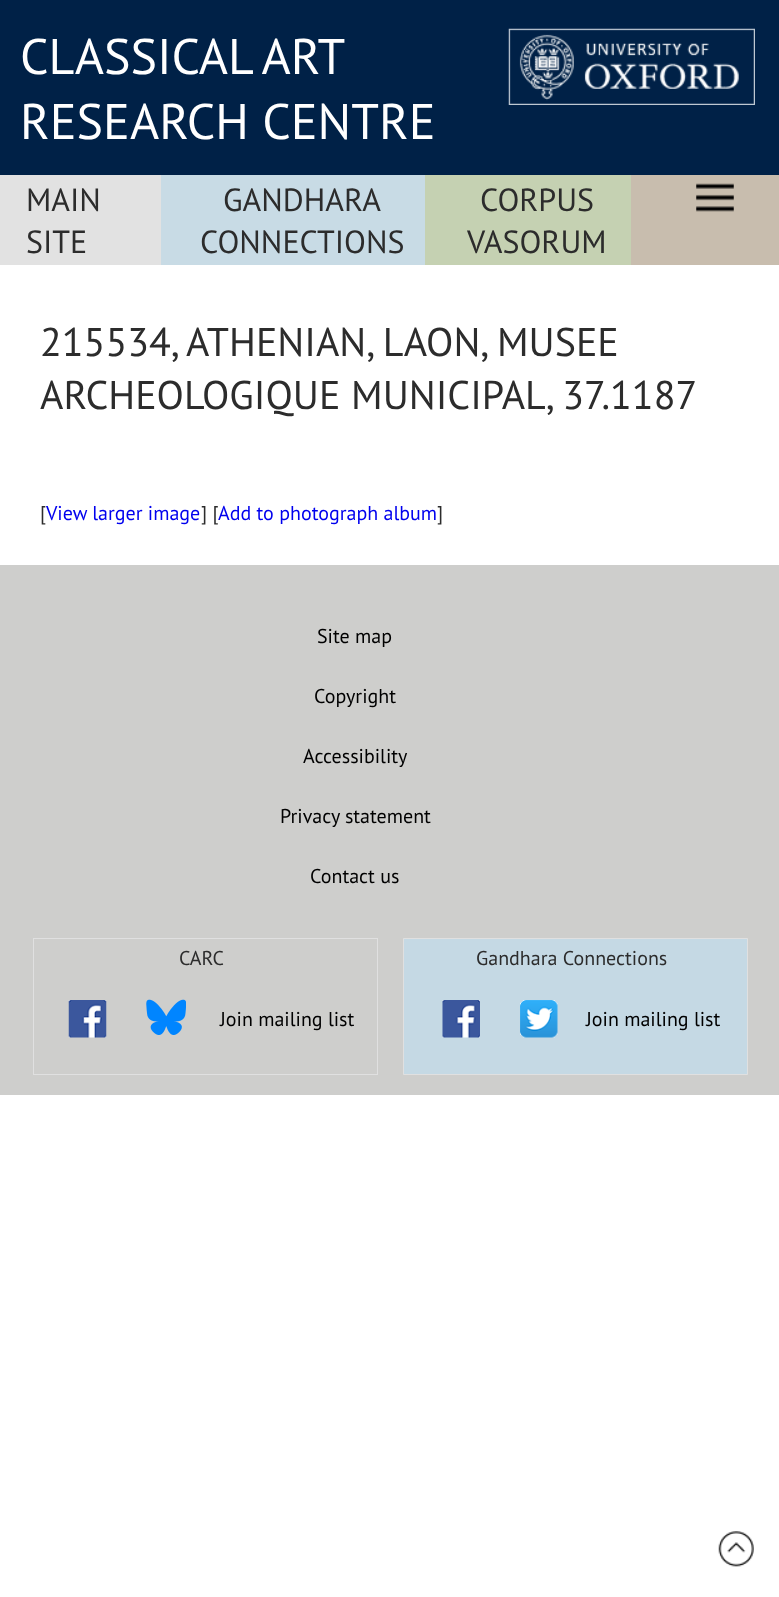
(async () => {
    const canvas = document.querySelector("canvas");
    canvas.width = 779;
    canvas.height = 1597;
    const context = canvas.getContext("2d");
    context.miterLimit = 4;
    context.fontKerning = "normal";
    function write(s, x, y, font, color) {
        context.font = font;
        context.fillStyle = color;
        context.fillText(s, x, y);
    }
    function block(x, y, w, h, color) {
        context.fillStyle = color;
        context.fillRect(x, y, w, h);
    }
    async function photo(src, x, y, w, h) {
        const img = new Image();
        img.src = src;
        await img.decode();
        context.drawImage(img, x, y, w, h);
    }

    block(0, 0, 779, 1597, "rgb(255, 255, 255)");
    block(0, 0, 779, 175, "rgb(0, 33, 71)");
    context.wordSpacing = "-2px";
    write("CLASSICAL ART", 20, 74, "50px PT Sans", "rgb(255, 255, 255)");
    context.wordSpacing = "0px";
    write("RESEARCH CENTRE", 20, 139, "50px PT Sans", "rgb(255, 255, 255)");
    await photo("media/1.png", 508, 28, 247, 77);
    block(0, 175, 161, 90, "rgb(226, 226, 226)");
    write("MAIN", 26, 211, "32px PT Sans", "rgb(44, 44, 44)");
    write("SITE", 26, 253, "32px PT Sans", "rgb(44, 44, 44)");
    block(161, 175, 264, 90, "rgb(200, 219, 229)");
    write("GANDHARA", 223, 211, "32px PT Sans", "rgb(44, 44, 44)");
    write("CONNECTIONS", 200, 253, "32px PT Sans", "rgb(44, 44, 44)");
    block(425, 175, 206, 90, "rgb(197, 209, 178)");
    write("CORPUS", 480, 211, "32px PT Sans", "rgb(44, 44, 44)");
    write("VASORUM", 467, 253, "32px PT Sans", "rgb(44, 44, 44)");
    block(631, 175, 148, 90, "rgb(200, 189, 174)");
    await photo("media/2.png", 696, 183, 38, 29);
    write("215534, ATHENIAN, LAON, MUSEE", 40, 356, "40px PT Sans", "rgb(44, 44, 44)");
    write("ARCHEOLOGIQUE MUNICIPAL, 37.1187", 40, 409, "40px PT Sans", "rgb(44, 44, 44)");
    write("[", 40, 520, "20px PT Sans", "rgb(44, 44, 44)");
    write("View larger image", 46, 520, "20px PT Sans", "rgb(0, 0, 238)");
    write("] [", 201, 520, "20px PT Sans", "rgb(44, 44, 44)");
    write("Add to photograph album", 218, 520, "20px PT Sans", "rgb(0, 0, 238)");
    write("]", 437, 520, "20px PT Sans", "rgb(44, 44, 44)");
    block(0, 565, 779, 530, "rgb(206, 206, 204)");
    write("Site map", 317, 643, "20px PT Sans", "rgb(0, 0, 0)");
    write("Copyright", 314, 703, "20px PT Sans", "rgb(0, 0, 0)");
    write("Accessibility", 303, 763, "20px PT Sans", "rgb(0, 0, 0)");
    write("Privacy statement", 280, 823, "20px PT Sans", "rgb(0, 0, 0)");
    write("Contact us", 310, 883, "20px PT Sans", "rgb(0, 0, 0)");
    context.strokeStyle = "rgb(224, 224, 224)";
    context.strokeRect(33.5, 938.5, 344, 136);
    write("CARC", 179, 965, "20px PT Sans", "rgb(44, 44, 44)");
    await photo("media/3.png", 68, 1000, 39, 38);
    await photo("media/4.png", 146, 999, 40, 36);
    write("Join mailing list", 220, 1026, "20px PT Sans", "rgb(0, 0, 0)");
    context.fillStyle = "rgb(197, 217, 228)";
    context.beginPath();
    context.rect(403.5, 938.5, 344, 136);
    context.fill();
    context.stroke();
    write("Gandhara Connections", 476, 965, "20px PT Sans", "rgb(44, 44, 44)");
    await photo("media/5.png", 442, 1000, 38, 38);
    await photo("media/6.png", 520, 1000, 38, 38);
    write("Join mailing list", 586, 1026, "20px PT Sans", "rgb(0, 0, 0)");
    await photo("media/7.png", 718, 1531, 36, 36);
})();
